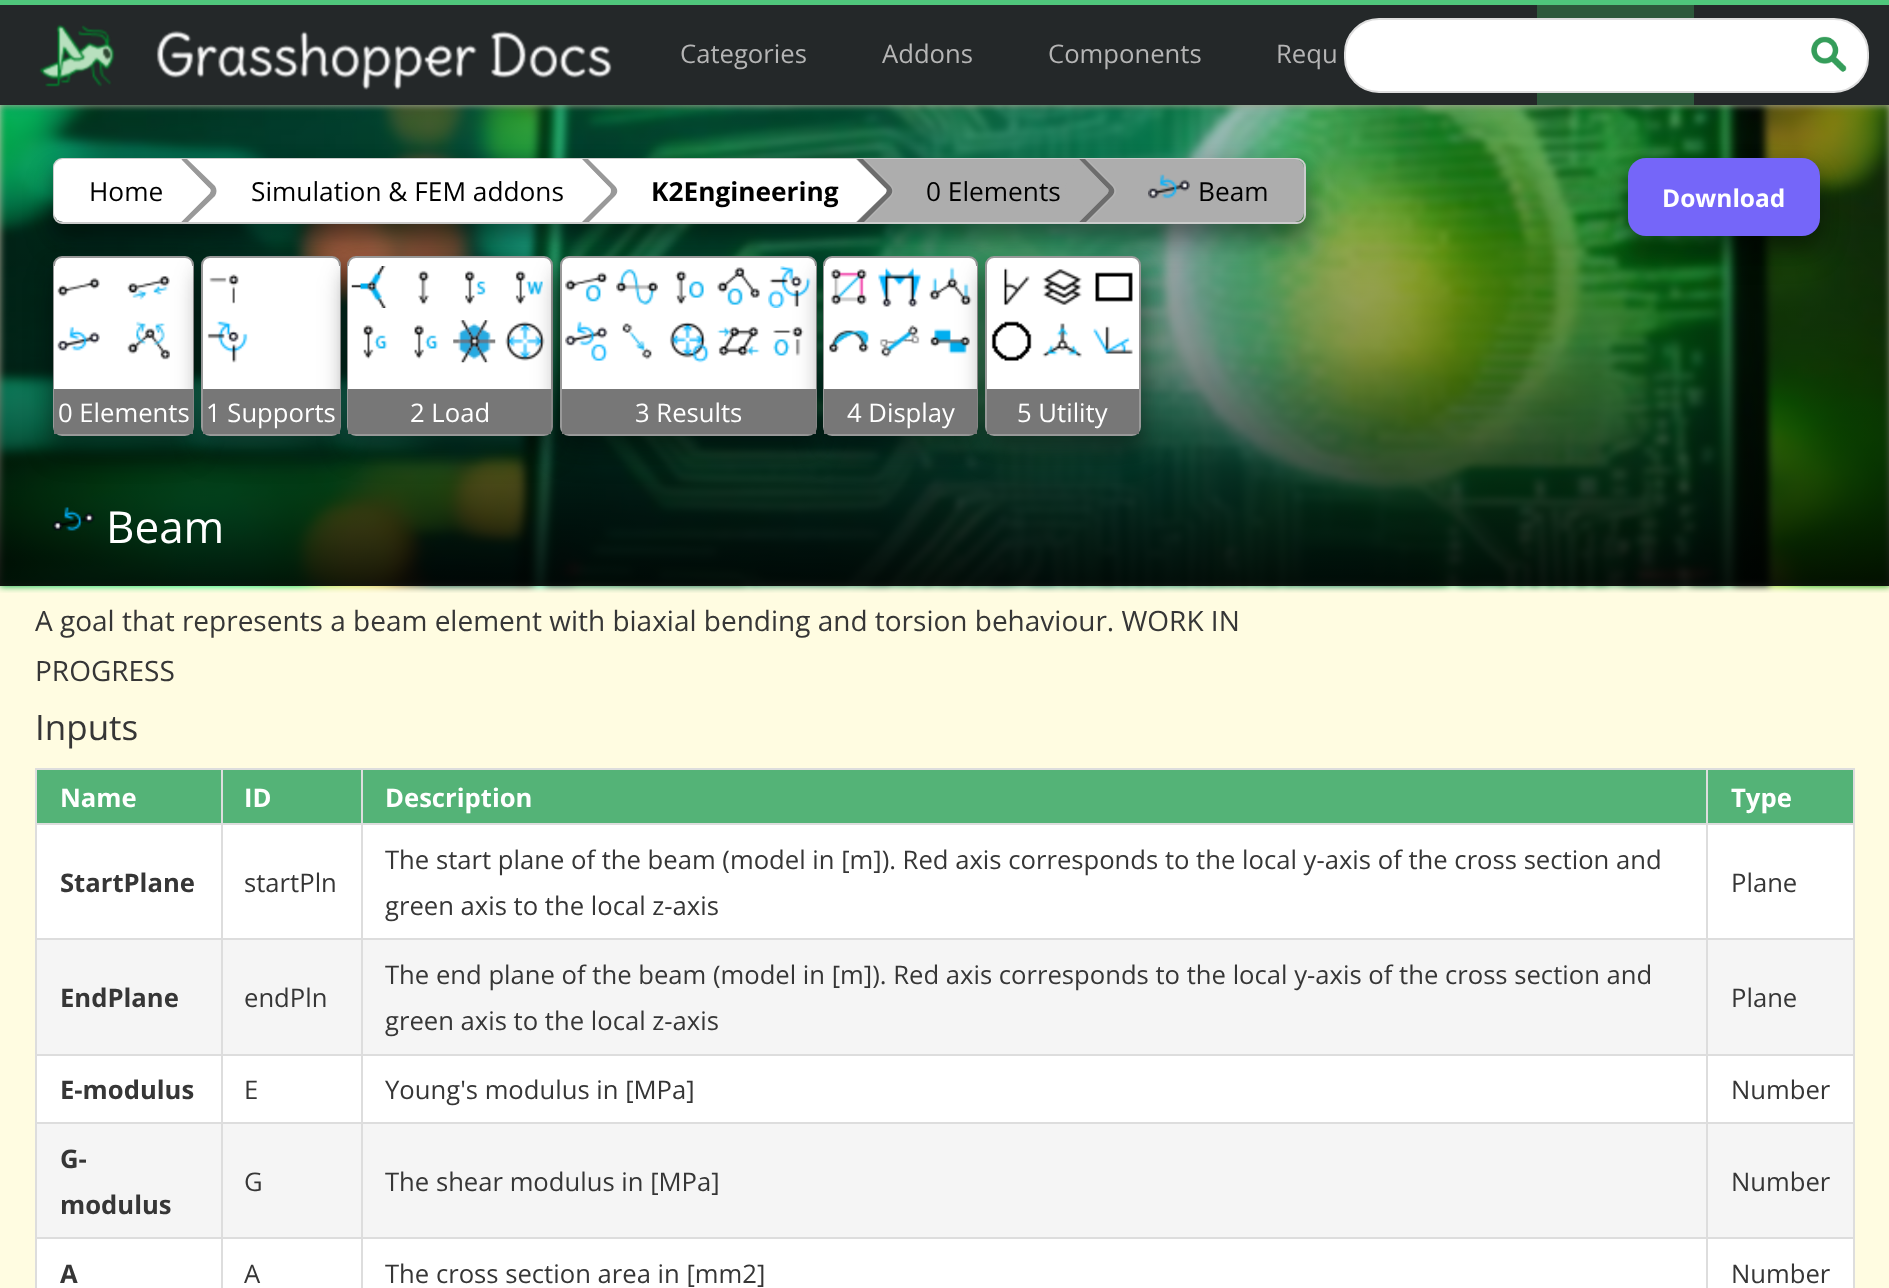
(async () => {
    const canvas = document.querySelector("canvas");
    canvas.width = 1889;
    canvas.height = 1288;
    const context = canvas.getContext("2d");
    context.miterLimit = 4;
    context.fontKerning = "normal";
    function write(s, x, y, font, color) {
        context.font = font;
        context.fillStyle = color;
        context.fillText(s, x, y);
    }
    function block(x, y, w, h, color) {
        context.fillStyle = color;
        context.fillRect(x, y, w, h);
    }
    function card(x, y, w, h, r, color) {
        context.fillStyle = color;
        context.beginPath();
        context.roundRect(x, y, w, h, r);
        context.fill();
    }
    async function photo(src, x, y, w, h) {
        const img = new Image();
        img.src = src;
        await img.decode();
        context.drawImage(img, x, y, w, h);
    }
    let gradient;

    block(0, 0, 1889, 1288, "rgb(255, 252, 225)");
    await photo("media/4.png", 0, 105, 1889, 488);
    gradient = context.createLinearGradient(945, 105, 945, 586);
    gradient.addColorStop(0, "rgba(0, 0, 0, 0.2)");
    gradient.addColorStop(0.5, "rgba(0, 0, 0, 0.4)");
    gradient.addColorStop(1, "rgba(0, 0, 0, 0.9)");
    context.fillStyle = gradient;
    context.fillRect(0, 105, 1889, 481);
    context.fillStyle = "rgba(0, 0, 0, 0.05)";
    context.filter = "blur(7px)";
    context.beginPath();
    context.rect(0, 4, 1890, 105);
    context.fill();
    context.filter = "none";
    context.filter = "blur(3.5px)";
    context.beginPath();
    context.rect(0, 2, 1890, 105);
    context.fill();
    context.filter = "none";
    context.filter = "blur(2px)";
    context.beginPath();
    context.rect(0, 2, 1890, 105);
    context.fill();
    context.filter = "none";
    block(0, 5, 1889, 100, "rgb(36, 40, 41)");
    block(0, 0, 1889, 5, "rgb(79, 198, 123)");
    await photo("media/1.png", 39, 24, 76, 63);
    await photo("media/2.png", 156, 30, 456, 60);
    write("Categories", 680, 63, "25.65px Open Sans", "rgb(181, 181, 181)");
    write("Addons", 882, 63, "25.65px Open Sans", "rgb(181, 181, 181)");
    write("Components", 1048, 63, "25.65px Open Sans", "rgb(181, 181, 181)");
    write("Requ", 1276, 63, "25.65px Open Sans", "rgb(181, 181, 181)");
    block(1537, 5, 157, 100, "rgb(45, 89, 59)");
    context.fillStyle = "rgb(255, 255, 255)";
    context.beginPath();
    context.roundRect(1345, 19, 523, 73, 34);
    context.fill();
    context.strokeStyle = "rgb(221, 221, 221)";
    context.lineWidth = 2;
    context.stroke();
    await photo("media/3.png", 1811, 36, 36, 36);
    context.fillStyle = "rgba(0, 0, 0, 0.19)";
    context.filter = "blur(9px)";
    context.beginPath();
    context.roundRect(53, 168, 1253, 67, 9);
    context.fill();
    context.filter = "none";
    context.fillStyle = "rgba(0, 0, 0, 0.3)";
    context.filter = "blur(14px)";
    context.beginPath();
    context.roundRect(53, 175, 1253, 67, 9);
    context.fill();
    context.filter = "none";
    context.beginPath();
    context.roundRect(54, 159, 1251, 64, 8);
    context.strokeStyle = "rgb(204, 204, 204)";
    context.stroke();
    context.fillStyle = "rgb(255, 255, 255)";
    context.beginPath();
    context.roundRect(54, 159, 126, 63, [9, 0, 0, 9]);
    context.fill();
    write("Home", 89, 201, "26.25px Open Sans", "rgb(0, 0, 0)");
    block(180, 159, 676, 63, "rgb(255, 255, 255)");
    context.fillStyle = "rgb(153, 153, 153)";
    context.beginPath();
    context.moveTo(180, 222);
    context.lineTo(179, 220);
    context.closePath();
    context.moveTo(181, 160);
    context.lineTo(209, 188);
    context.bezierCurveTo(211, 189, 211, 192, 209, 194);
    context.lineTo(181, 222);
    context.lineTo(188, 222);
    context.lineTo(215, 196);
    context.bezierCurveTo(217, 193, 217, 189, 215, 186);
    context.lineTo(187, 159);
    context.lineTo(182, 159);
    context.closePath();
    context.fill("evenodd");
    context.fillStyle = "rgb(255, 255, 255)";
    context.beginPath();
    context.moveTo(181, 159);
    context.lineTo(209, 188);
    context.bezierCurveTo(211, 189, 211, 192, 209, 194);
    context.lineTo(181, 222);
    context.bezierCurveTo(164, 205, 164, 177, 181, 159);
    context.closePath();
    context.fill();
    write("Simulation & FEM addons", 251, 201, "26.25px Open Sans", "rgb(0, 0, 0)");
    context.fillStyle = "rgb(153, 153, 153)";
    context.beginPath();
    context.moveTo(582, 159);
    context.lineTo(610, 188);
    context.bezierCurveTo(611, 189, 611, 192, 610, 194);
    context.lineTo(582, 222);
    context.lineTo(589, 222);
    context.lineTo(615, 196);
    context.bezierCurveTo(618, 193, 618, 189, 615, 186);
    context.lineTo(588, 159);
    context.closePath();
    context.fill();
    context.fillStyle = "rgb(255, 255, 255)";
    context.beginPath();
    context.moveTo(581, 159);
    context.lineTo(610, 188);
    context.bezierCurveTo(611, 189, 611, 192, 610, 194);
    context.lineTo(581, 222);
    context.bezierCurveTo(564, 205, 564, 177, 581, 159);
    context.closePath();
    context.fill();
    write("K2Engineering", 651, 201, "bold 26.25px Open Sans", "rgb(0, 0, 0)");
    block(856, 159, 222, 63, "rgb(173, 173, 173)");
    context.fillStyle = "rgb(181, 181, 181)";
    context.beginPath();
    context.moveTo(858, 222);
    context.lineTo(866, 222);
    context.lineTo(892, 196);
    context.bezierCurveTo(894, 193, 894, 189, 892, 186);
    context.lineTo(865, 159);
    context.lineTo(859, 159);
    context.lineTo(858, 160);
    context.lineTo(885, 188);
    context.bezierCurveTo(887, 189, 887, 192, 885, 194);
    context.lineTo(858, 221);
    context.closePath();
    context.fill();
    context.fillStyle = "rgba(0, 0, 0, 0.4)";
    context.beginPath();
    context.moveTo(857, 159);
    context.lineTo(885, 188);
    context.bezierCurveTo(887, 189, 887, 192, 885, 194);
    context.lineTo(857, 222);
    context.lineTo(864, 222);
    context.lineTo(890, 196);
    context.bezierCurveTo(893, 193, 893, 189, 890, 186);
    context.lineTo(863, 159);
    context.closePath();
    context.fill();
    context.fillStyle = "rgb(255, 255, 255)";
    context.beginPath();
    context.moveTo(856, 159);
    context.lineTo(885, 188);
    context.bezierCurveTo(887, 189, 887, 192, 885, 194);
    context.lineTo(856, 222);
    context.bezierCurveTo(839, 205, 839, 177, 856, 159);
    context.closePath();
    context.fill();
    write("0 Elements", 926, 201, "26.25px Open Sans", "rgb(0, 0, 0)");
    context.fillStyle = "rgb(173, 173, 173)";
    context.beginPath();
    context.roundRect(1078, 159, 226, 63, [0, 9, 9, 0]);
    context.fill();
    context.fillStyle = "rgb(181, 181, 181)";
    context.beginPath();
    context.moveTo(1080, 222);
    context.lineTo(1088, 222);
    context.lineTo(1114, 196);
    context.bezierCurveTo(1117, 193, 1117, 189, 1114, 186);
    context.lineTo(1087, 159);
    context.lineTo(1081, 159);
    context.lineTo(1080, 160);
    context.lineTo(1107, 188);
    context.bezierCurveTo(1109, 189, 1109, 192, 1107, 194);
    context.lineTo(1080, 221);
    context.closePath();
    context.fill();
    context.fillStyle = "rgba(0, 0, 0, 0.4)";
    context.beginPath();
    context.moveTo(1078, 222);
    context.lineTo(1078, 221);
    context.closePath();
    context.moveTo(1079, 159);
    context.lineTo(1107, 188);
    context.bezierCurveTo(1109, 189, 1109, 192, 1107, 194);
    context.lineTo(1079, 222);
    context.lineTo(1086, 222);
    context.lineTo(1112, 196);
    context.bezierCurveTo(1115, 193, 1115, 189, 1112, 186);
    context.lineTo(1085, 159);
    context.closePath();
    context.fill("evenodd");
    context.fillStyle = "rgb(173, 173, 173)";
    context.beginPath();
    context.moveTo(1079, 159);
    context.lineTo(1107, 188);
    context.bezierCurveTo(1109, 189, 1109, 192, 1107, 194);
    context.lineTo(1079, 222);
    context.bezierCurveTo(1061, 205, 1061, 177, 1079, 159);
    context.closePath();
    context.fill();
    await photo("media/5.png", 1148, 174, 42, 25);
    write("Beam", 1198, 201, "26.25px Open Sans", "rgb(0, 0, 0)");
    context.fillStyle = "rgba(0, 0, 0, 0.19)";
    context.filter = "blur(9px)";
    context.beginPath();
    context.roundRect(53, 266, 141, 180, 9);
    context.fill();
    context.filter = "none";
    context.fillStyle = "rgba(0, 0, 0, 0.3)";
    context.filter = "blur(14px)";
    context.beginPath();
    context.roundRect(53, 273, 141, 180, 9);
    context.fill();
    context.filter = "none";
    context.fillStyle = "rgb(255, 255, 255)";
    context.beginPath();
    context.roundRect(54, 257, 139, 178, 8);
    context.fill();
    context.strokeStyle = "rgb(153, 153, 153)";
    context.stroke();
    block(54, 266, 139, 123, "rgb(255, 255, 255)");
    await photo("media/6.png", 57, 277, 43, 20);
    await photo("media/7.png", 57, 326, 43, 25);
    await photo("media/8.png", 127, 276, 43, 24);
    await photo("media/9.png", 127, 321, 43, 39);
    context.fillStyle = "rgba(0, 0, 0, 0.19)";
    context.filter = "blur(9px)";
    context.beginPath();
    context.roundRect(201, 266, 140, 180, 9);
    context.fill();
    context.filter = "none";
    context.fillStyle = "rgba(0, 0, 0, 0.3)";
    context.filter = "blur(14px)";
    context.beginPath();
    context.roundRect(201, 273, 140, 180, 9);
    context.fill();
    context.filter = "none";
    block(54, 389, 139, 45, "rgb(119, 119, 119)");
    write("0 Elements", 58, 422, "25.65px Open Sans", "rgb(255, 255, 255)");
    context.beginPath();
    context.roundRect(202, 257, 138, 178, 8);
    context.fill();
    context.stroke();
    block(339, 266, 1, 123, "rgb(255, 255, 255)");
    await photo("media/10.png", 209, 274, 30, 30);
    await photo("media/11.png", 207, 321, 41, 42);
    context.fillStyle = "rgba(0, 0, 0, 0.19)";
    context.filter = "blur(9px)";
    context.beginPath();
    context.roundRect(347, 266, 206, 180, 9);
    context.fill();
    context.filter = "none";
    context.fillStyle = "rgba(0, 0, 0, 0.3)";
    context.filter = "blur(14px)";
    context.beginPath();
    context.roundRect(347, 273, 206, 180, 9);
    context.fill();
    context.filter = "none";
    block(203, 389, 137, 45, "rgb(119, 119, 119)");
    write("1 Supports", 206, 422, "25.65px Open Sans", "rgb(255, 255, 255)");
    context.beginPath();
    context.roundRect(348, 257, 204, 178, 8);
    context.fill();
    context.stroke();
    block(348, 266, 1, 123, "rgb(255, 255, 255)");
    await photo("media/12.png", 351, 266, 36, 42);
    await photo("media/13.png", 363, 325, 25, 34);
    await photo("media/14.png", 418, 270, 12, 35);
    await photo("media/15.png", 414, 325, 24, 34);
    await photo("media/16.png", 465, 270, 21, 35);
    await photo("media/17.png", 453, 320, 43, 43);
    await photo("media/18.png", 515, 270, 28, 35);
    await photo("media/19.png", 505, 321, 40, 40);
    context.fillStyle = "rgba(0, 0, 0, 0.19)";
    context.filter = "blur(9px)";
    context.beginPath();
    context.roundRect(560, 266, 257, 180, 9);
    context.fill();
    context.filter = "none";
    context.fillStyle = "rgba(0, 0, 0, 0.3)";
    context.filter = "blur(14px)";
    context.beginPath();
    context.roundRect(560, 273, 257, 180, 9);
    context.fill();
    context.filter = "none";
    block(348, 389, 203, 45, "rgb(119, 119, 119)");
    write("2 Load", 410, 422, "25.65px Open Sans", "rgb(255, 255, 255)");
    context.beginPath();
    context.roundRect(561, 257, 255, 178, 8);
    context.fill();
    context.stroke();
    block(815, 266, 1, 123, "rgb(255, 255, 255)");
    await photo("media/20.png", 565, 272, 43, 30);
    await photo("media/21.png", 565, 321, 43, 40);
    await photo("media/22.png", 616, 269, 42, 36);
    await photo("media/23.png", 622, 323, 30, 37);
    await photo("media/24.png", 675, 270, 29, 35);
    await photo("media/25.png", 669, 322, 40, 41);
    await photo("media/26.png", 717, 267, 43, 38);
    await photo("media/27.png", 717, 326, 43, 30);
    await photo("media/28.png", 768, 266, 43, 42);
    await photo("media/29.png", 773, 326, 31, 30);
    context.fillStyle = "rgba(0, 0, 0, 0.19)";
    context.filter = "blur(9px)";
    context.beginPath();
    context.roundRect(823, 266, 155, 180, 9);
    context.fill();
    context.filter = "none";
    context.fillStyle = "rgba(0, 0, 0, 0.3)";
    context.filter = "blur(14px)";
    context.beginPath();
    context.roundRect(823, 273, 155, 180, 9);
    context.fill();
    context.filter = "none";
    block(562, 389, 254, 45, "rgb(119, 119, 119)");
    write("3 Results", 635, 422, "25.65px Open Sans", "rgb(255, 255, 255)");
    context.beginPath();
    context.roundRect(824, 257, 153, 178, 8);
    context.fill();
    context.stroke();
    block(824, 266, 153, 123, "rgb(255, 255, 255)");
    await photo("media/30.png", 830, 269, 37, 36);
    await photo("media/31.png", 829, 330, 40, 23);
    await photo("media/32.png", 878, 267, 43, 40);
    await photo("media/33.png", 879, 325, 41, 33);
    await photo("media/34.png", 929, 267, 43, 38);
    await photo("media/35.png", 930, 328, 40, 26);
    context.fillStyle = "rgba(0, 0, 0, 0.19)";
    context.filter = "blur(9px)";
    context.beginPath();
    context.roundRect(985, 266, 156, 180, 9);
    context.fill();
    context.filter = "none";
    context.fillStyle = "rgba(0, 0, 0, 0.3)";
    context.filter = "blur(14px)";
    context.beginPath();
    context.roundRect(985, 273, 156, 180, 9);
    context.fill();
    context.filter = "none";
    block(824, 389, 153, 45, "rgb(119, 119, 119)");
    write("4 Display", 847, 422, "25.65px Open Sans", "rgb(255, 255, 255)");
    context.beginPath();
    context.roundRect(986, 257, 154, 178, 8);
    context.fill();
    context.stroke();
    await photo("media/36.png", 1003, 267, 27, 39);
    await photo("media/37.png", 991, 321, 41, 40);
    await photo("media/38.png", 1042, 269, 40, 36);
    await photo("media/39.png", 1042, 323, 40, 35);
    await photo("media/40.png", 1095, 272, 38, 30);
    await photo("media/41.png", 1093, 325, 40, 29);
    block(987, 389, 152, 45, "rgb(119, 119, 119)");
    write("5 Utility", 1017, 422, "25.65px Open Sans", "rgb(255, 255, 255)");
    await photo("media/42.png", 52, 507, 43, 24);
    write("Beam", 106, 543, "44px Open Sans", "rgb(255, 255, 255)");
    context.fillStyle = "rgba(0, 0, 0, 0.19)";
    context.filter = "blur(9px)";
    context.beginPath();
    context.roundRect(1628, 168, 192, 79, 18);
    context.fill();
    context.filter = "none";
    context.fillStyle = "rgba(0, 0, 0, 0.3)";
    context.filter = "blur(14px)";
    context.beginPath();
    context.roundRect(1628, 175, 192, 79, 18);
    context.fill();
    context.filter = "none";
    card(1628, 158, 192, 78, 18, "rgb(117, 102, 249)");
    write("Download", 1662, 207, "bold 24.5px Open Sans", "rgb(255, 255, 255)");
    write("A goal that represents a beam element with biaxial bending and torsion behaviour. WORK IN", 35, 631, "28px Open Sans", "rgb(54, 54, 54)");
    write("PROGRESS", 35, 681, "28px Open Sans", "rgb(54, 54, 54)");
    write("Inputs", 35, 740, "35px Open Sans", "rgb(54, 54, 54)");
    block(37, 770, 184, 53, "rgb(84, 179, 119)");
    block(1706, 768, 149, 2, "rgb(221, 221, 221)");
    block(1706, 823, 149, 2, "rgb(221, 221, 221)");
    block(37, 825, 1816, 113, "rgb(255, 255, 255)");
    block(1706, 938, 149, 2, "rgb(221, 221, 221)");
    block(37, 940, 1816, 114, "rgb(245, 245, 245)");
    block(1706, 1054, 149, 2, "rgb(221, 221, 221)");
    block(37, 1056, 1816, 66, "rgb(255, 255, 255)");
    block(1706, 1122, 149, 2, "rgb(221, 221, 221)");
    block(37, 1124, 1816, 113, "rgb(245, 245, 245)");
    block(1706, 1237, 149, 2, "rgb(221, 221, 221)");
    block(37, 1239, 1816, 49, "rgb(255, 255, 255)");
    block(1706, 1237, 2, 51, "rgb(221, 221, 221)");
    block(361, 1237, 1347, 2, "rgb(221, 221, 221)");
    block(1706, 1122, 2, 117, "rgb(221, 221, 221)");
    block(361, 1122, 1347, 2, "rgb(221, 221, 221)");
    block(1706, 1054, 2, 70, "rgb(221, 221, 221)");
    block(361, 1054, 1347, 2, "rgb(221, 221, 221)");
    block(1706, 938, 2, 117, "rgb(221, 221, 221)");
    block(361, 938, 1347, 2, "rgb(221, 221, 221)");
    block(1706, 823, 2, 117, "rgb(221, 221, 221)");
    block(361, 823, 1347, 2, "rgb(221, 221, 221)");
    block(1706, 768, 2, 56, "rgb(221, 221, 221)");
    block(361, 768, 1347, 2, "rgb(221, 221, 221)");
    block(361, 1237, 2, 51, "rgb(221, 221, 221)");
    block(221, 1237, 141, 2, "rgb(221, 221, 221)");
    block(361, 1122, 2, 117, "rgb(221, 221, 221)");
    block(221, 1122, 141, 2, "rgb(221, 221, 221)");
    block(361, 1054, 2, 70, "rgb(221, 221, 221)");
    block(221, 1054, 141, 2, "rgb(221, 221, 221)");
    block(361, 938, 2, 117, "rgb(221, 221, 221)");
    block(221, 938, 141, 2, "rgb(221, 221, 221)");
    block(361, 823, 2, 117, "rgb(221, 221, 221)");
    block(221, 823, 141, 2, "rgb(221, 221, 221)");
    block(361, 768, 2, 56, "rgb(221, 221, 221)");
    block(221, 768, 141, 2, "rgb(221, 221, 221)");
    block(221, 1237, 2, 51, "rgb(221, 221, 221)");
    block(35, 1237, 187, 2, "rgb(221, 221, 221)");
    block(221, 1122, 2, 117, "rgb(221, 221, 221)");
    block(35, 1122, 187, 2, "rgb(221, 221, 221)");
    block(221, 1054, 2, 70, "rgb(221, 221, 221)");
    block(35, 1054, 187, 2, "rgb(221, 221, 221)");
    block(221, 938, 2, 117, "rgb(221, 221, 221)");
    block(35, 938, 187, 2, "rgb(221, 221, 221)");
    block(221, 823, 2, 117, "rgb(221, 221, 221)");
    block(35, 823, 187, 2, "rgb(221, 221, 221)");
    block(221, 768, 2, 56, "rgb(221, 221, 221)");
    block(35, 768, 187, 2, "rgb(221, 221, 221)");
    block(35, 1237, 2, 51, "rgb(221, 221, 221)");
    block(35, 1122, 2, 117, "rgb(221, 221, 221)");
    block(35, 1054, 2, 70, "rgb(221, 221, 221)");
    block(35, 938, 2, 117, "rgb(221, 221, 221)");
    block(35, 823, 2, 117, "rgb(221, 221, 221)");
    block(35, 768, 2, 56, "rgb(221, 221, 221)");
    write("Name", 60, 807, "bold 25.65px Open Sans", "rgb(255, 255, 255)");
    block(223, 770, 138, 53, "rgb(84, 179, 119)");
    write("ID", 244, 807, "bold 25.65px Open Sans", "rgb(255, 255, 255)");
    block(363, 770, 1343, 53, "rgb(84, 179, 119)");
    write("Description", 385, 807, "bold 25.65px Open Sans", "rgb(255, 255, 255)");
    block(1708, 770, 145, 53, "rgb(84, 179, 119)");
    block(1853, 1237, 2, 51, "rgb(221, 221, 221)");
    block(1853, 1122, 2, 117, "rgb(221, 221, 221)");
    block(1853, 1054, 2, 70, "rgb(221, 221, 221)");
    block(1853, 938, 2, 117, "rgb(221, 221, 221)");
    block(1853, 823, 2, 117, "rgb(221, 221, 221)");
    block(1853, 768, 2, 56, "rgb(221, 221, 221)");
    write("Type", 1731, 807, "bold 25.65px Open Sans", "rgb(255, 255, 255)");
    write("StartPlane", 60, 892, "bold 25.65px Open Sans", "rgb(54, 54, 54)");
    write("startPln", 244, 892, "25.65px Open Sans", "rgb(54, 54, 54)");
    write("The start plane of the beam (model in [m]). Red axis corresponds to the local y-axis of the cross section and", 385, 869, "25.65px Open Sans", "rgb(54, 54, 54)");
    write("green axis to the local z-axis", 385, 915, "25.65px Open Sans", "rgb(54, 54, 54)");
    write("Plane", 1731, 892, "25.65px Open Sans", "rgb(54, 54, 54)");
    write("EndPlane", 60, 1007, "bold 25.65px Open Sans", "rgb(54, 54, 54)");
    write("endPln", 244, 1007, "25.65px Open Sans", "rgb(54, 54, 54)");
    write("The end plane of the beam (model in [m]). Red axis corresponds to the local y-axis of the cross section and", 385, 984, "25.65px Open Sans", "rgb(54, 54, 54)");
    write("green axis to the local z-axis", 385, 1030, "25.65px Open Sans", "rgb(54, 54, 54)");
    write("Plane", 1731, 1007, "25.65px Open Sans", "rgb(54, 54, 54)");
    write("E-modulus", 60, 1099, "bold 25.65px Open Sans", "rgb(54, 54, 54)");
    write("E", 244, 1099, "25.65px Open Sans", "rgb(54, 54, 54)");
    write("Young's modulus in [MPa]", 385, 1099, "25.65px Open Sans", "rgb(54, 54, 54)");
    write("Number", 1731, 1099, "25.65px Open Sans", "rgb(54, 54, 54)");
    write("G-", 60, 1168, "bold 25.65px Open Sans", "rgb(54, 54, 54)");
    write("modulus", 60, 1214, "bold 25.65px Open Sans", "rgb(54, 54, 54)");
    write("G", 244, 1191, "25.65px Open Sans", "rgb(54, 54, 54)");
    write("The shear modulus in [MPa]", 385, 1191, "25.65px Open Sans", "rgb(54, 54, 54)");
    write("Number", 1731, 1191, "25.65px Open Sans", "rgb(54, 54, 54)");
    write("A", 60, 1283, "bold 25.65px Open Sans", "rgb(54, 54, 54)");
    write("A", 244, 1283, "25.65px Open Sans", "rgb(54, 54, 54)");
    write("The cross section area in [mm2]", 385, 1283, "25.65px Open Sans", "rgb(54, 54, 54)");
    write("Number", 1731, 1283, "25.65px Open Sans", "rgb(54, 54, 54)");
})();
